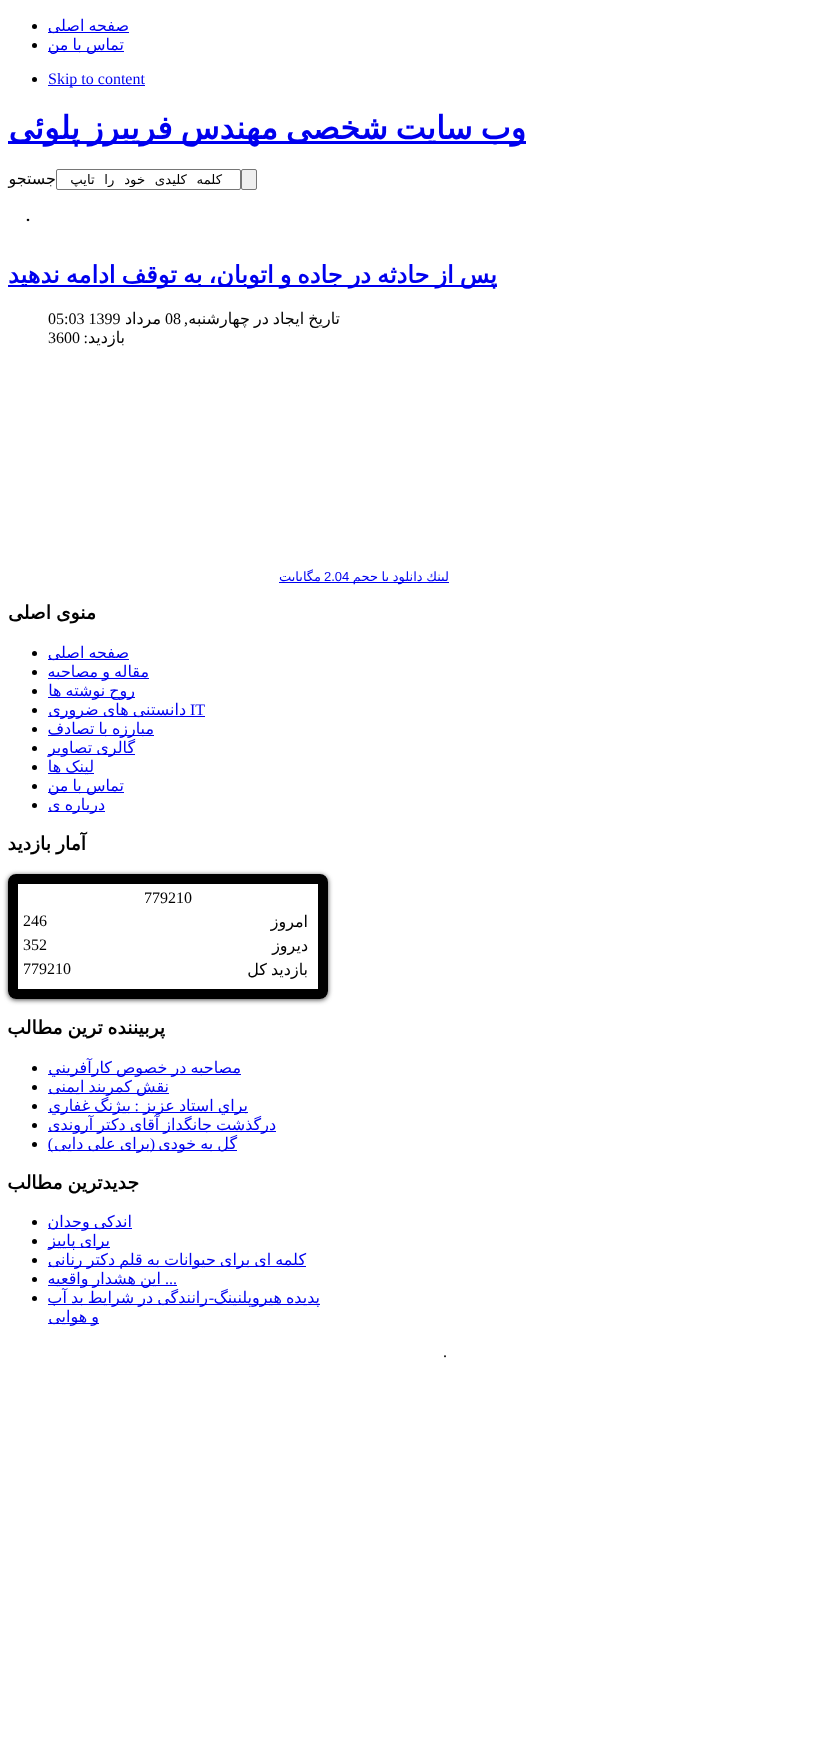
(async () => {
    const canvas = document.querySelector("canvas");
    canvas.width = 836;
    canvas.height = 1761;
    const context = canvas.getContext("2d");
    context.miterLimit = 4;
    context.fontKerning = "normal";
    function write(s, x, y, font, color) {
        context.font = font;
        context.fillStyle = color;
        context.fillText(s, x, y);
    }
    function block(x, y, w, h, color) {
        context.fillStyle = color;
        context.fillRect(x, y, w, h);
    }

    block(0, 0, 836, 1761, "rgb(255, 255, 255)");
    block(48, 32, 81, 1, "rgb(0, 0, 238)");
    context.wordSpacing = "-1px";
    context.direction = "rtl";
    write("صفحه اصلی", 129, 31, "16px DejaVu Sans", "rgb(0, 0, 238)");
    context.fillStyle = "rgb(0, 0, 0)";
    context.beginPath();
    context.arc(34.5, 26.5, 2.5, 0, Math.PI * 2);
    context.fill();
    block(48, 51, 76, 1, "rgb(0, 0, 238)");
    write("تماس با من", 124, 50, "16px DejaVu Sans", "rgb(0, 0, 238)");
    context.fillStyle = "rgb(0, 0, 0)";
    context.beginPath();
    context.arc(34.5, 45.5, 2.5, 0, Math.PI * 2);
    context.fill();
    block(48, 85, 97, 1, "rgb(0, 0, 238)");
    context.wordSpacing = "0px";
    context.direction = "ltr";
    write("Skip to content", 48, 84, "16px Liberation Serif", "rgb(0, 0, 238)");
    context.fillStyle = "rgb(0, 0, 0)";
    context.beginPath();
    context.arc(34.5, 79.5, 2.5, 0, Math.PI * 2);
    context.fill();
    block(8, 141, 518, 3, "rgb(0, 0, 238)");
    context.wordSpacing = "-2.25px";
    context.direction = "rtl";
    write("وب سایت شخصی مهندس فریبرز پلوئی", 526, 139, "bold 32px DejaVu Sans", "rgb(0, 0, 238)");
    context.fillStyle = "rgb(239, 239, 239)";
    context.beginPath();
    context.roundRect(241.5, 169.5, 15, 20, 1.5);
    context.fill();
    context.strokeStyle = "rgb(118, 118, 118)";
    context.stroke();
    context.beginPath();
    context.roundRect(56.5, 169.5, 184, 20, 1.5);
    context.stroke();
    context.save();
    context.beginPath();
    context.rect(60, 172, 177, 15);
    context.clip();
    context.wordSpacing = "5.5px";
    write("کلمه کلیدی خود را تایپ", 222, 184, "13.25px DejaVu Sans", "rgb(0, 0, 0)");
    context.restore();
    context.wordSpacing = "0px";
    write("جستجو", 56, 184, "16px DejaVu Sans", "rgb(0, 0, 0)");
    context.direction = "ltr";
    write(".", 26, 221, "bold 16px Liberation Serif", "rgb(0, 0, 0)");
    block(8, 285, 489, 2, "rgb(0, 0, 238)");
    context.wordSpacing = "-1.6px";
    context.direction = "rtl";
    write("پس از حادثه در جاده و اتوبان، به توقف ادامه ندهید", 497, 283, "bold 24px DejaVu Sans", "rgb(0, 0, 238)");
    context.wordSpacing = "-1px";
    write("تاریخ ایجاد در چهارشنبه", 340, 324, "16px DejaVu Sans", "rgb(0, 0, 0)");
    context.wordSpacing = "0px";
    write(",", 188, 324, "16px Liberation Serif", "rgb(0, 0, 0)");
    context.direction = "ltr";
    write("08", 165, 324, "16px Liberation Serif", "rgb(0, 0, 0)");
    context.direction = "rtl";
    write("مرداد", 161, 324, "16px DejaVu Sans", "rgb(0, 0, 0)");
    context.direction = "ltr";
    write("05:03 1399", 48, 324, "16px Liberation Serif", "rgb(0, 0, 0)");
    context.direction = "rtl";
    write("بازدید", 125, 343, "16px DejaVu Sans", "rgb(0, 0, 0)");
    write(":", 88, 343, "16px Liberation Serif", "rgb(0, 0, 0)");
    context.direction = "ltr";
    write("3600", 48, 343, "16px Liberation Serif", "rgb(0, 0, 0)");
    block(279, 582, 170, 1, "rgb(0, 0, 238)");
    context.wordSpacing = "-0.5px";
    context.direction = "rtl";
    write("لينك دانلود با حجم", 449, 581, "13px DejaVu Sans", "rgb(0, 0, 238)");
    context.wordSpacing = "0px";
    context.direction = "ltr";
    write("2.04", 324, 581, "13px Liberation Sans", "rgb(0, 0, 238)");
    context.direction = "rtl";
    write("مگابايت", 321, 581, "13px DejaVu Sans", "rgb(0, 0, 238)");
    context.wordSpacing = "-1px";
    write("منوی اصلی", 96, 619, "bold 18.75px DejaVu Sans", "rgb(0, 0, 0)");
    block(48, 659, 81, 1, "rgb(0, 0, 238)");
    write("صفحه اصلی", 129, 658, "16px DejaVu Sans", "rgb(0, 0, 238)");
    context.fillStyle = "rgb(0, 0, 0)";
    context.beginPath();
    context.arc(34.5, 653.5, 2.5, 0, Math.PI * 2);
    context.fill();
    block(48, 678, 101, 1, "rgb(0, 0, 238)");
    write("مقاله و مصاحبه", 149, 677, "16px DejaVu Sans", "rgb(0, 0, 238)");
    context.fillStyle = "rgb(0, 0, 0)";
    context.beginPath();
    context.arc(34.5, 672.5, 2.5, 0, Math.PI * 2);
    context.fill();
    block(48, 697, 87, 1, "rgb(0, 0, 238)");
    write("روح نوشته ها", 135, 696, "16px DejaVu Sans", "rgb(0, 0, 238)");
    context.fillStyle = "rgb(0, 0, 0)";
    context.beginPath();
    context.arc(34.5, 691.5, 2.5, 0, Math.PI * 2);
    context.fill();
    context.wordSpacing = "0px";
    context.direction = "ltr";
    write("IT", 190, 715, "16px Liberation Serif", "rgb(0, 0, 238)");
    block(48, 716, 138, 1, "rgb(0, 0, 238)");
    context.wordSpacing = "-1px";
    context.direction = "rtl";
    write("دانستنی های ضروری", 186, 715, "16px DejaVu Sans", "rgb(0, 0, 238)");
    block(186, 716, 19, 1, "rgb(0, 0, 238)");
    context.fillStyle = "rgb(0, 0, 0)";
    context.beginPath();
    context.arc(34.5, 710.5, 2.5, 0, Math.PI * 2);
    context.fill();
    block(48, 735, 106, 1, "rgb(0, 0, 238)");
    write("مبارزه با تصادف", 154, 734, "16px DejaVu Sans", "rgb(0, 0, 238)");
    context.fillStyle = "rgb(0, 0, 0)";
    context.beginPath();
    context.arc(34.5, 729.5, 2.5, 0, Math.PI * 2);
    context.fill();
    block(48, 754, 87, 1, "rgb(0, 0, 238)");
    write("گالری تصاویر", 135, 753, "16px DejaVu Sans", "rgb(0, 0, 238)");
    context.fillStyle = "rgb(0, 0, 0)";
    context.beginPath();
    context.arc(34.5, 748.5, 2.5, 0, Math.PI * 2);
    context.fill();
    block(48, 773, 46, 1, "rgb(0, 0, 238)");
    write("لینک ها", 94, 772, "16px DejaVu Sans", "rgb(0, 0, 238)");
    context.fillStyle = "rgb(0, 0, 0)";
    context.beginPath();
    context.arc(34.5, 767.5, 2.5, 0, Math.PI * 2);
    context.fill();
    block(48, 792, 76, 1, "rgb(0, 0, 238)");
    write("تماس با من", 124, 791, "16px DejaVu Sans", "rgb(0, 0, 238)");
    context.fillStyle = "rgb(0, 0, 0)";
    context.beginPath();
    context.arc(34.5, 786.5, 2.5, 0, Math.PI * 2);
    context.fill();
    block(48, 811, 57, 1, "rgb(0, 0, 238)");
    write("درباره ی", 105, 810, "16px DejaVu Sans", "rgb(0, 0, 238)");
    context.fillStyle = "rgb(0, 0, 0)";
    context.beginPath();
    context.arc(34.5, 805.5, 2.5, 0, Math.PI * 2);
    context.fill();
    write("آمار بازدید", 86, 850, "bold 18.75px DejaVu Sans", "rgb(0, 0, 0)");
    context.save();
    context.beginPath();
    context.moveTo(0, 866);
    context.lineTo(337, 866);
    context.lineTo(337, 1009);
    context.lineTo(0, 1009);
    context.closePath();
    context.moveTo(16, 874);
    context.lineTo(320, 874);
    context.bezierCurveTo(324.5, 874, 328, 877.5, 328, 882);
    context.lineTo(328, 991);
    context.bezierCurveTo(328, 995.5, 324.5, 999, 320, 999);
    context.lineTo(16, 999);
    context.bezierCurveTo(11.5, 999, 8, 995.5, 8, 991);
    context.lineTo(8, 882);
    context.bezierCurveTo(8, 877.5, 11.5, 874, 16, 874);
    context.closePath();
    context.clip("evenodd");
    context.fillStyle = "rgb(74, 74, 74)";
    context.filter = "blur(2.5px)";
    context.beginPath();
    context.roundRect(8, 875, 320, 125, 8);
    context.fill();
    context.filter = "none";
    context.restore();
    context.beginPath();
    context.roundRect(13, 879, 310, 115, 3);
    context.strokeStyle = "rgb(0, 0, 0)";
    context.lineWidth = 10;
    context.stroke();
    context.wordSpacing = "0px";
    context.direction = "ltr";
    write("779210", 144, 903, "16px Liberation Serif", "rgb(0, 0, 0)");
    context.direction = "rtl";
    write("امروز", 308, 927, "16px DejaVu Sans", "rgb(0, 0, 0)");
    write("دیروز", 308, 951, "16px DejaVu Sans", "rgb(0, 0, 0)");
    context.wordSpacing = "-1px";
    write("بازدید کل", 308, 975, "16px DejaVu Sans", "rgb(0, 0, 0)");
    context.wordSpacing = "0px";
    context.direction = "ltr";
    write("246", 23, 926, "16px Liberation Serif", "rgb(0, 0, 0)");
    write("352", 23, 950, "16px Liberation Serif", "rgb(0, 0, 0)");
    write("779210", 23, 974, "16px Liberation Serif", "rgb(0, 0, 0)");
    context.wordSpacing = "-1px";
    context.direction = "rtl";
    write("پربیننده ترین مطالب", 165, 1034, "bold 18.75px DejaVu Sans", "rgb(0, 0, 0)");
    block(48, 1074, 193, 1, "rgb(0, 0, 238)");
    write("مصاحبه در خصوص كارآفريني", 241, 1073, "16px DejaVu Sans", "rgb(0, 0, 238)");
    context.fillStyle = "rgb(0, 0, 0)";
    context.beginPath();
    context.arc(34.5, 1068.5, 2.5, 0, Math.PI * 2);
    context.fill();
    block(48, 1093, 121, 1, "rgb(0, 0, 238)");
    write("نقش کمربند ایمنی", 169, 1092, "16px DejaVu Sans", "rgb(0, 0, 238)");
    context.fillStyle = "rgb(0, 0, 0)";
    context.beginPath();
    context.arc(34.5, 1087.5, 2.5, 0, Math.PI * 2);
    context.fill();
    block(48, 1112, 200, 1, "rgb(0, 0, 238)");
    write("براي استاد عزيز", 248, 1111, "16px DejaVu Sans", "rgb(0, 0, 238)");
    context.wordSpacing = "0px";
    write(":", 139, 1111, "16px Liberation Serif", "rgb(0, 0, 238)");
    context.wordSpacing = "-1px";
    write("بيژنگ غفاري", 131, 1111, "16px DejaVu Sans", "rgb(0, 0, 238)");
    context.fillStyle = "rgb(0, 0, 0)";
    context.beginPath();
    context.arc(34.5, 1106.5, 2.5, 0, Math.PI * 2);
    context.fill();
    block(48, 1131, 228, 1, "rgb(0, 0, 238)");
    write("درگذشت جانگداز آقای دکتر آروندی", 276, 1130, "16px DejaVu Sans", "rgb(0, 0, 238)");
    context.fillStyle = "rgb(0, 0, 0)";
    context.beginPath();
    context.arc(34.5, 1125.5, 2.5, 0, Math.PI * 2);
    context.fill();
    block(48, 1150, 189, 1, "rgb(0, 0, 238)");
    write("گل به خودی", 237, 1149, "16px DejaVu Sans", "rgb(0, 0, 238)");
    context.wordSpacing = "0px";
    write("(", 155, 1149, "16px Liberation Serif", "rgb(0, 0, 238)");
    context.wordSpacing = "-1px";
    write("برای علی دایی", 150, 1149, "16px DejaVu Sans", "rgb(0, 0, 238)");
    context.wordSpacing = "0px";
    write(")", 53, 1149, "16px Liberation Serif", "rgb(0, 0, 238)");
    context.fillStyle = "rgb(0, 0, 0)";
    context.beginPath();
    context.arc(34.5, 1144.5, 2.5, 0, Math.PI * 2);
    context.fill();
    context.wordSpacing = "-1px";
    write("جدیدترین مطالب", 139, 1189, "bold 18.75px DejaVu Sans", "rgb(0, 0, 0)");
    block(48, 1228, 84, 1, "rgb(0, 0, 238)");
    write("اندکی وجدان", 132, 1227, "16px DejaVu Sans", "rgb(0, 0, 238)");
    context.fillStyle = "rgb(0, 0, 0)";
    context.beginPath();
    context.arc(34.5, 1222.5, 2.5, 0, Math.PI * 2);
    context.fill();
    block(48, 1247, 62, 1, "rgb(0, 0, 238)");
    write("برای پاییز", 110, 1246, "16px DejaVu Sans", "rgb(0, 0, 238)");
    context.fillStyle = "rgb(0, 0, 0)";
    context.beginPath();
    context.arc(34.5, 1241.5, 2.5, 0, Math.PI * 2);
    context.fill();
    block(48, 1266, 258, 1, "rgb(0, 0, 238)");
    write("کلمه ای برای حیوانات به قلم دکتر رنانی", 306, 1265, "16px DejaVu Sans", "rgb(0, 0, 238)");
    context.fillStyle = "rgb(0, 0, 0)";
    context.beginPath();
    context.arc(34.5, 1260.5, 2.5, 0, Math.PI * 2);
    context.fill();
    block(48, 1285, 113, 1, "rgb(0, 0, 238)");
    write("این هشدار واقعیه", 161, 1284, "16px DejaVu Sans", "rgb(0, 0, 238)");
    context.fillStyle = "rgb(0, 0, 0)";
    context.beginPath();
    context.arc(34.5, 1279.5, 2.5, 0, Math.PI * 2);
    context.fill();
    context.wordSpacing = "0px";
    context.direction = "ltr";
    write("...", 165, 1284, "16px Liberation Serif", "rgb(0, 0, 238)");
    block(161, 1285, 16, 1, "rgb(0, 0, 238)");
    block(48, 1304, 272, 1, "rgb(0, 0, 238)");
    context.wordSpacing = "-1px";
    context.direction = "rtl";
    write("پدیده هیروپلنینگ", 320, 1303, "16px DejaVu Sans", "rgb(0, 0, 238)");
    write("رانندگی در شرایط بد آب", 208, 1303, "16px DejaVu Sans", "rgb(0, 0, 238)");
    context.fillStyle = "rgb(0, 0, 0)";
    context.beginPath();
    context.arc(34.5, 1298.5, 2.5, 0, Math.PI * 2);
    context.fill();
    context.wordSpacing = "0px";
    write("-", 214, 1303, "16px Liberation Serif", "rgb(0, 0, 238)");
    block(48, 1323, 51, 1, "rgb(0, 0, 238)");
    context.wordSpacing = "-1px";
    write("و هوایی", 99, 1322, "16px DejaVu Sans", "rgb(0, 0, 238)");
    context.wordSpacing = "0px";
    write(".", 447, 1357, "16px Liberation Serif", "rgb(0, 0, 0)");
})();
